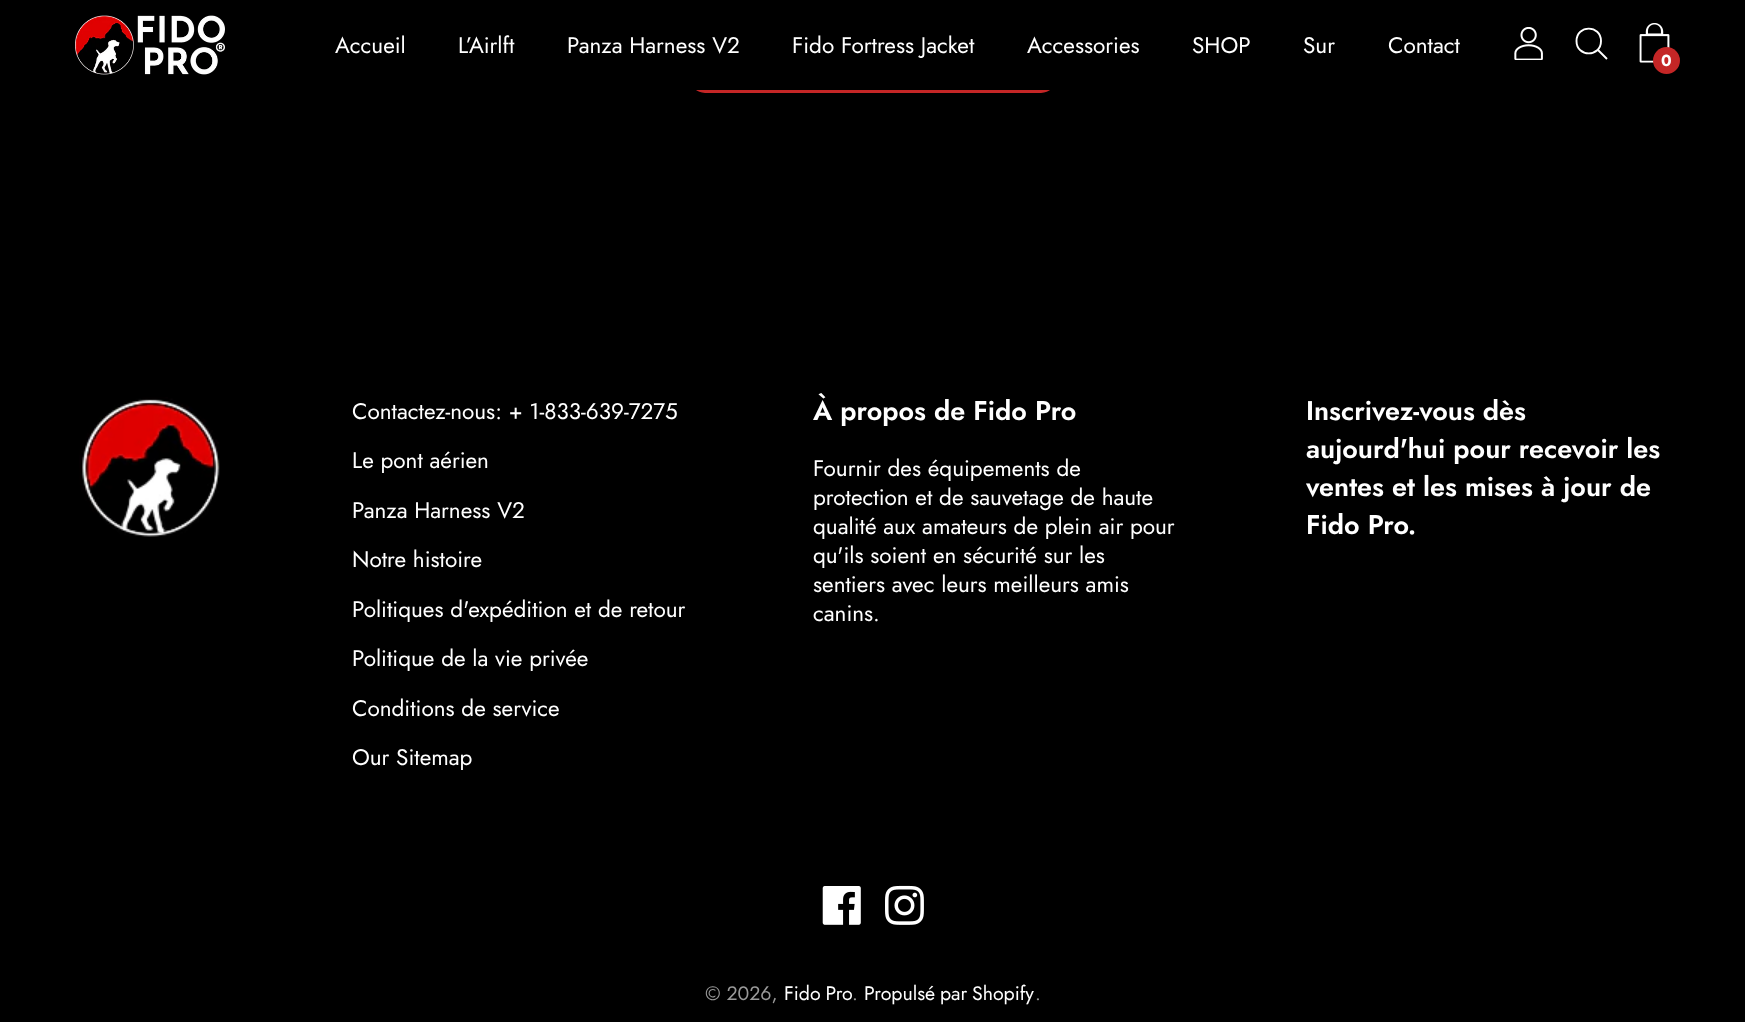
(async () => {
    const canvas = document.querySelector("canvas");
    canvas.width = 1745;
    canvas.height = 1022;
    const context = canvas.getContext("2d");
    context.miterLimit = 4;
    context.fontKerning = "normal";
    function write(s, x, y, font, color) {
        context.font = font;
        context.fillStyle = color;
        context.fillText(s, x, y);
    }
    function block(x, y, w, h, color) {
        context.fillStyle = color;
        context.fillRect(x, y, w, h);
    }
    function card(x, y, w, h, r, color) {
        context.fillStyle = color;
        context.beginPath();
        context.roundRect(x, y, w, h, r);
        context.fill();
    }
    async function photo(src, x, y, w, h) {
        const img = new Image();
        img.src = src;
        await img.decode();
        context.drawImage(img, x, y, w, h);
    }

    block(0, 0, 1745, 1022, "rgb(0, 0, 0)");
    card(690, 14, 366, 79, 15, "rgb(196, 38, 38)");
    block(690, 14, 366, 76, "rgb(0, 0, 0)");
    await photo("media/1.png", 75, 15, 150, 60);
    write("Accueil", 335, 53, "22.5px Jost", "rgb(255, 255, 255)");
    write("L’Airlft", 458, 53, "22.5px Jost", "rgb(255, 255, 255)");
    write("Panza Harness V2", 567, 53, "22.5px Jost", "rgb(255, 255, 255)");
    write("Fido Fortress Jacket", 792, 53, "22.5px Jost", "rgb(255, 255, 255)");
    write("Accessories", 1027, 53, "22.5px Jost", "rgb(255, 255, 255)");
    write("SHOP", 1192, 53, "22.5px Jost", "rgb(255, 255, 255)");
    write("Sur", 1303, 53, "22.5px Jost", "rgb(255, 255, 255)");
    write("Contact", 1388, 53, "22.5px Jost", "rgb(255, 255, 255)");
    await photo("media/2.png", 1514, 27, 29, 33);
    context.beginPath();
    context.moveTo(1601, 41);
    context.bezierCurveTo(1601, 57.5, 1576.5, 57.5, 1576.5, 41);
    context.bezierCurveTo(1576.5, 24.5, 1601, 24.5, 1601, 41);
    context.closePath();
    context.moveTo(1597.5, 49.5);
    context.lineTo(1607, 59);
    context.strokeStyle = "rgb(255, 255, 255)";
    context.lineWidth = 1.9;
    context.stroke();
    await photo("media/3.png", 1639, 23, 31, 40);
    context.fillStyle = "rgb(196, 38, 38)";
    context.beginPath();
    context.arc(1666.5, 60.5, 13.5, 0, Math.PI * 2);
    context.fill();
    write("0", 1661, 66, "bold 16px Jost", "rgb(255, 255, 255)");
    await photo("media/4.png", 79, 397, 141, 140);
    write("Contactez-nous: + 1-833-639-7275", 352, 419, "22.5px Jost", "rgb(255, 255, 255)");
    write("Le pont aérien", 352, 468, "22.5px Jost", "rgb(255, 255, 255)");
    write("Panza Harness V2", 352, 518, "22.5px Jost", "rgb(255, 255, 255)");
    write("Notre histoire", 352, 567, "22.5px Jost", "rgb(255, 255, 255)");
    write("Politiques d'expédition et de retour", 352, 617, "22.5px Jost", "rgb(255, 255, 255)");
    write("Politique de la vie privée", 352, 666, "22.5px Jost", "rgb(255, 255, 255)");
    write("Conditions de service", 352, 716, "22.5px Jost", "rgb(255, 255, 255)");
    write("Our Sitemap", 352, 765, "22.5px Jost", "rgb(255, 255, 255)");
    write("À propos de Fido Pro", 813, 420, "600 27px Jost", "rgb(255, 255, 255)");
    write("Fournir des équipements de", 813, 476, "22.5px Jost", "rgb(255, 255, 255)");
    write("protection et de sauvetage de haute", 813, 505, "22.5px Jost", "rgb(255, 255, 255)");
    write("qualité aux amateurs de plein air pour", 813, 534, "22.5px Jost", "rgb(255, 255, 255)");
    write("qu'ils soient en sécurité sur les", 813, 563, "22.5px Jost", "rgb(255, 255, 255)");
    write("sentiers avec leurs meilleurs amis", 813, 592, "22.5px Jost", "rgb(255, 255, 255)");
    write("canins.", 813, 621, "22.5px Jost", "rgb(255, 255, 255)");
    write("Inscrivez-vous dès", 1306, 420, "600 27px Jost", "rgb(255, 255, 255)");
    write("aujourd'hui pour recevoir les", 1306, 458, "600 27px Jost", "rgb(255, 255, 255)");
    write("ventes et les mises à jour de", 1306, 496, "600 27px Jost", "rgb(255, 255, 255)");
    write("Fido Pro.", 1306, 534, "600 27px Jost", "rgb(255, 255, 255)");
    await photo("media/5.png", 822, 886, 39, 39);
    await photo("media/6.png", 885, 885, 39, 40);
    write("© 2026,", 705, 1000, "19.5px Jost", "rgb(153, 153, 153)");
    context.wordSpacing = "-1px";
    write("Fido Pro", 784, 1000, "19.5px Jost", "rgb(255, 255, 255)");
    context.wordSpacing = "0px";
    write(".", 852, 1000, "19.5px Jost", "rgb(153, 153, 153)");
    context.wordSpacing = "-1px";
    write("Propulsé par Shopify", 864, 1000, "19.5px Jost", "rgb(255, 255, 255)");
    context.wordSpacing = "0px";
    write(".", 1035, 1000, "19.5px Jost", "rgb(153, 153, 153)");
})();
